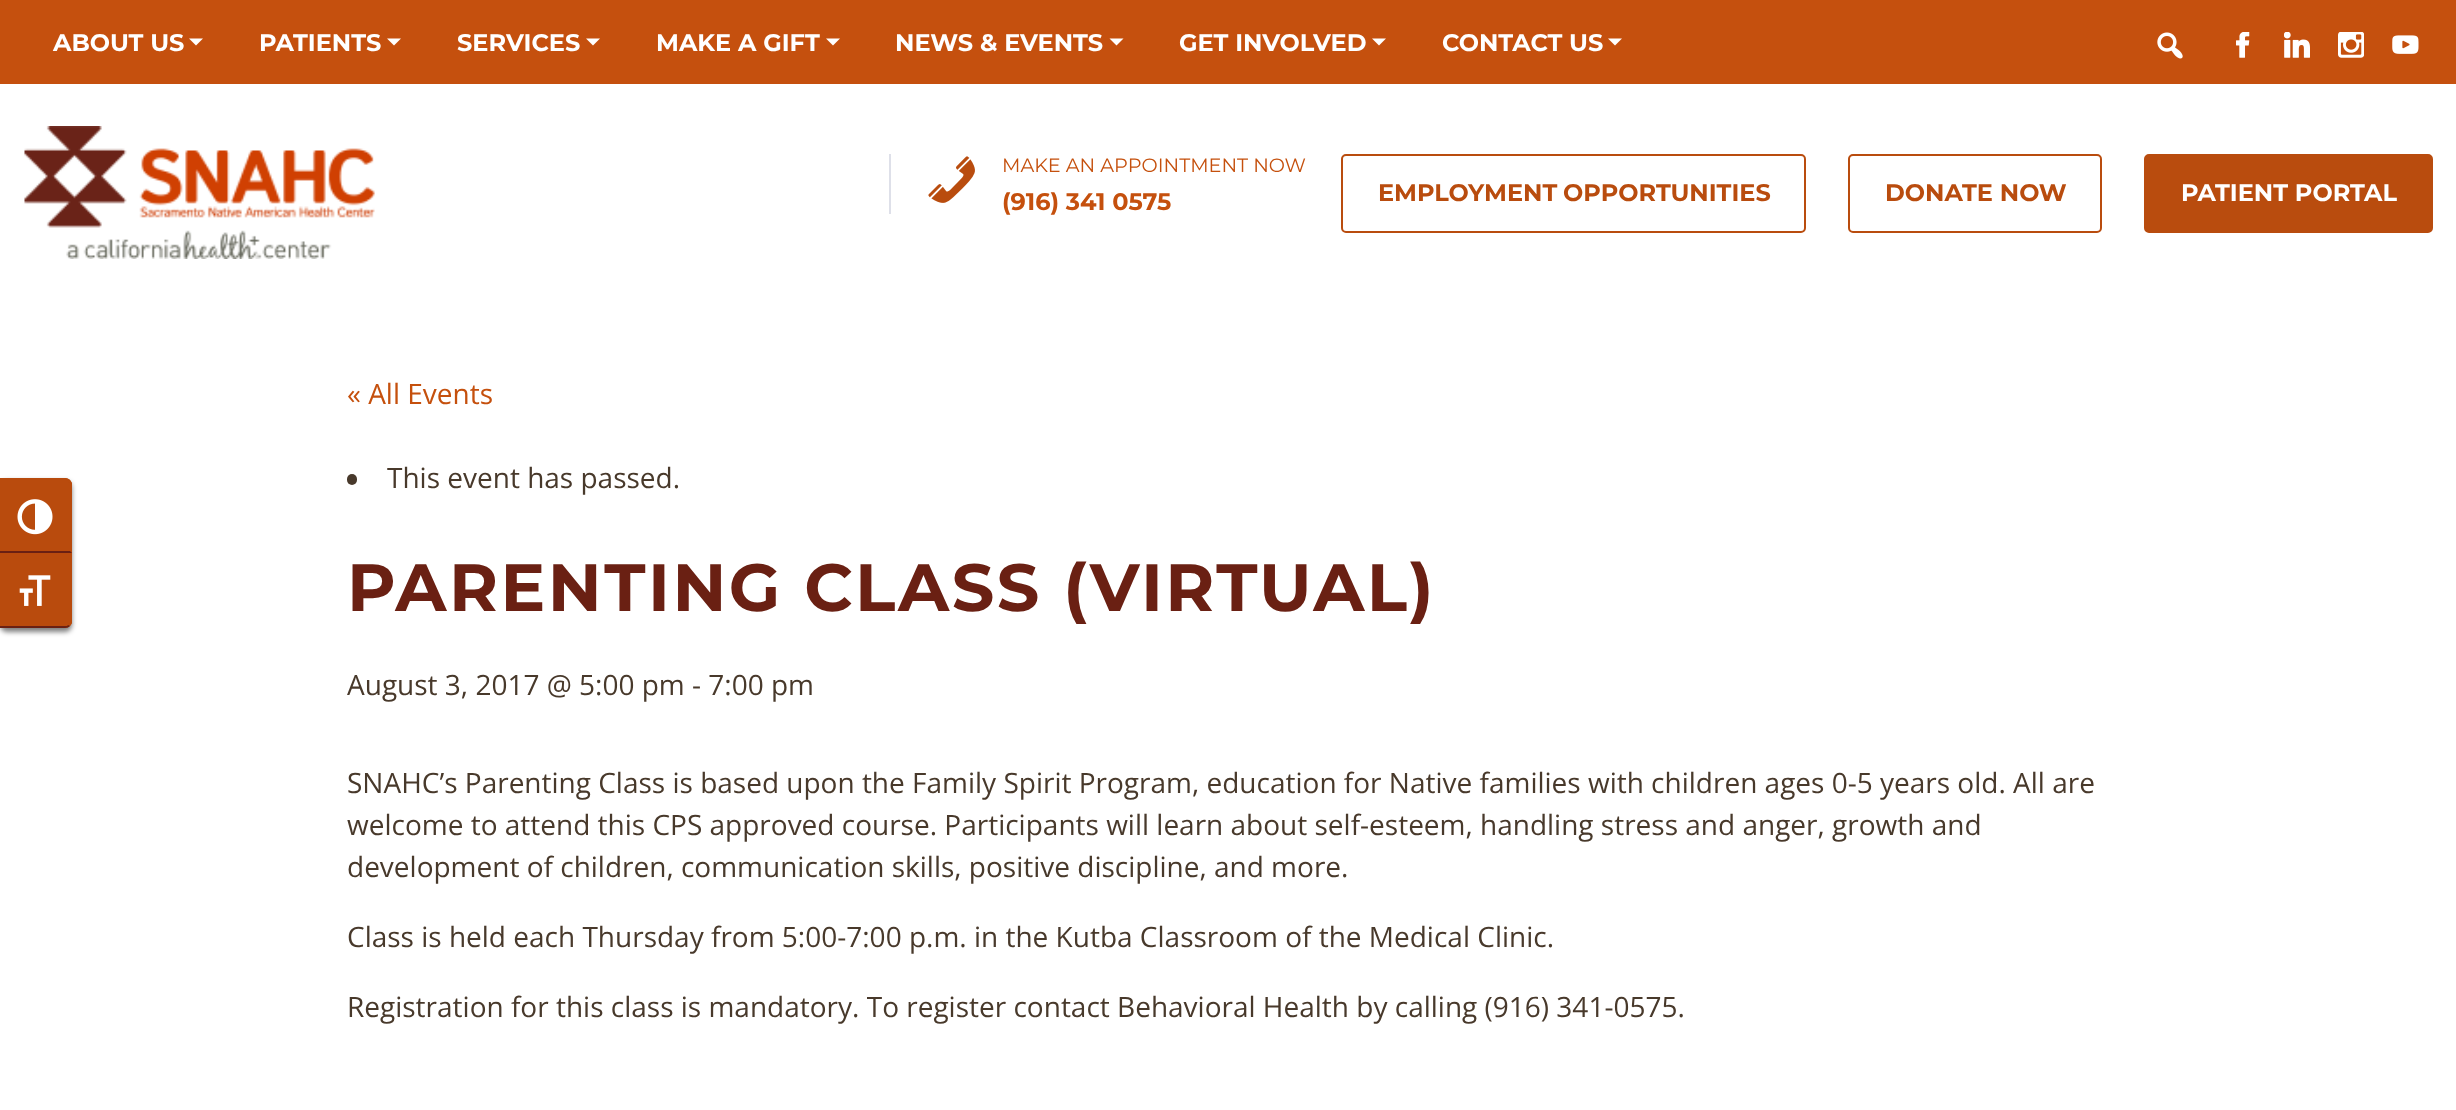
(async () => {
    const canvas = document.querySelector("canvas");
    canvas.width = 2456;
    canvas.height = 1110;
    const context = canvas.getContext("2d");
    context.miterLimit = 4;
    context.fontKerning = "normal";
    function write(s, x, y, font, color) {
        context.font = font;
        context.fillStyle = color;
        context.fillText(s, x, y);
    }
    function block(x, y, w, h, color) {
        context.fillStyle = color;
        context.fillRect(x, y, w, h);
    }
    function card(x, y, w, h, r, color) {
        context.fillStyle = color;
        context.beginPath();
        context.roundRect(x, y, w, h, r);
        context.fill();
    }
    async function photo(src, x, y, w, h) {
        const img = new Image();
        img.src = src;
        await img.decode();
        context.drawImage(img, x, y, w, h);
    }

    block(0, 0, 2456, 1110, "rgb(255, 255, 255)");
    block(0, 0, 2456, 84, "rgb(197, 80, 14)");
    write("ABOUT US", 53, 51, "bold 24px Montserrat", "rgb(255, 255, 255)");
    context.beginPath();
    context.moveTo(189, 38.5);
    context.lineTo(203, 38.5);
    context.lineTo(196, 45.5);
    context.closePath();
    context.fill();
    write("PATIENTS", 259, 51, "bold 24px Montserrat", "rgb(255, 255, 255)");
    context.beginPath();
    context.moveTo(387, 38.5);
    context.lineTo(401, 38.5);
    context.lineTo(394, 45.5);
    context.closePath();
    context.fill();
    write("SERVICES", 457, 51, "bold 24px Montserrat", "rgb(255, 255, 255)");
    context.beginPath();
    context.moveTo(586, 38.5);
    context.lineTo(600, 38.5);
    context.lineTo(593, 45.5);
    context.closePath();
    context.fill();
    write("MAKE A GIFT", 656, 51, "bold 24px Montserrat", "rgb(255, 255, 255)");
    context.beginPath();
    context.moveTo(826, 38.5);
    context.lineTo(840, 38.5);
    context.lineTo(833, 45.5);
    context.closePath();
    context.fill();
    write("NEWS & EVENTS", 895, 51, "bold 24px Montserrat", "rgb(255, 255, 255)");
    context.beginPath();
    context.moveTo(1109.5, 38.5);
    context.lineTo(1123.5, 38.5);
    context.lineTo(1116.5, 45.5);
    context.closePath();
    context.fill();
    write("GET INVOLVED", 1179, 51, "bold 24px Montserrat", "rgb(255, 255, 255)");
    context.beginPath();
    context.moveTo(1372, 38.5);
    context.lineTo(1386, 38.5);
    context.lineTo(1379, 45.5);
    context.closePath();
    context.fill();
    write("CONTACT US", 1442, 51, "bold 24px Montserrat", "rgb(255, 255, 255)");
    context.beginPath();
    context.moveTo(1608, 38.5);
    context.lineTo(1622, 38.5);
    context.lineTo(1615, 45.5);
    context.closePath();
    context.fill();
    await photo("media/1.png", 2157, 32, 26, 27);
    await photo("media/2.png", 2236, 32, 14, 26);
    await photo("media/3.png", 2284, 32, 26, 26);
    await photo("media/4.png", 2338, 32, 26, 26);
    await photo("media/5.png", 2392, 35, 27, 19);
    await photo("media/6.png", 24, 126, 351, 133);
    block(889, 154, 2, 60, "rgb(222, 224, 233)");
    await photo("media/7.png", 928, 156, 47, 47);
    write("MAKE AN APPOINTMENT NOW", 1002, 172, "19.25px Montserrat", "rgb(197, 80, 13)");
    write("(916) 341 0575", 1002, 210, "bold 24px Montserrat", "rgb(197, 80, 13)");
    context.beginPath();
    context.roundRect(1342, 155, 463, 77, 4);
    context.strokeStyle = "rgb(185, 76, 14)";
    context.lineWidth = 2;
    context.stroke();
    context.wordSpacing = "-1px";
    write("EMPLOYMENT OPPORTUNITIES", 1378, 201, "bold 24px Montserrat", "rgb(185, 76, 14)");
    context.beginPath();
    context.roundRect(1849, 155, 252, 77, 4);
    context.stroke();
    context.wordSpacing = "0px";
    write("DONATE NOW", 1885, 201, "bold 24px Montserrat", "rgb(185, 76, 14)");
    context.beginPath();
    context.roundRect(2145, 155, 287, 77, 4);
    context.fill();
    context.stroke();
    write("PATIENT PORTAL", 2181, 201, "bold 24px Montserrat", "rgb(255, 255, 255)");
    context.fillStyle = "rgba(0, 0, 0, 0.5)";
    context.filter = "blur(2.5px)";
    context.beginPath();
    context.roundRect(0, 481, 72, 151, 7);
    context.fill();
    context.filter = "none";
    context.fillStyle = "rgb(185, 75, 13)";
    context.beginPath();
    context.roundRect(0, 478, 72, 75, [0, 7, 0, 0]);
    context.fill();
    context.beginPath();
    context.moveTo(0, 480);
    context.lineTo(65, 480);
    context.bezierCurveTo(66, 480, 68, 480, 68, 481);
    context.lineTo(70, 480);
    context.bezierCurveTo(69, 479, 67, 478, 65, 478);
    context.lineTo(0, 478);
    context.closePath();
    context.fill();
    context.beginPath();
    context.moveTo(70, 480);
    context.lineTo(72, 483);
    context.lineTo(72, 553);
    context.lineTo(70, 551);
    context.lineTo(70, 484);
    context.lineTo(68, 481);
    context.closePath();
    context.fill();
    context.fillStyle = "rgb(106, 32, 19)";
    context.beginPath();
    context.moveTo(72, 553);
    context.lineTo(70, 551);
    context.lineTo(0, 551);
    context.lineTo(0, 553);
    context.closePath();
    context.fill();
    await photo("media/8.png", 17, 499, 36, 36);
    context.fillStyle = "rgb(185, 75, 13)";
    context.beginPath();
    context.roundRect(0, 553, 72, 75, [0, 0, 7, 0]);
    context.fill();
    context.beginPath();
    context.moveTo(72, 553);
    context.lineTo(72, 623);
    context.lineTo(70, 626);
    context.lineTo(68, 625);
    context.lineTo(70, 622);
    context.lineTo(70, 555);
    context.closePath();
    context.fill();
    context.fillStyle = "rgb(106, 32, 19)";
    context.beginPath();
    context.moveTo(0, 626);
    context.lineTo(0, 628);
    context.lineTo(65, 628);
    context.bezierCurveTo(67, 628, 69, 627, 70, 626);
    context.lineTo(68, 625);
    context.bezierCurveTo(68, 626, 66, 626, 65, 626);
    context.closePath();
    context.fill();
    await photo("media/9.png", 19, 575, 32, 31);
    write("« All Events", 347, 404, "28px Open Sans", "rgb(197, 80, 13)");
    card(347, 474, 10, 11, 5, "rgb(72, 57, 43)");
    write("This event has passed.", 387, 488, "28px Open Sans", "rgb(72, 57, 43)");
    context.letterSpacing = "2.5px";
    write("PARENTING CLASS (VIRTUAL)", 347, 611, "bold 66.75px Montserrat", "rgb(106, 32, 19)");
    context.letterSpacing = "0px";
    write("August 3, 2017 @ 5:00 pm - 7:00 pm", 347, 695, "28px Open Sans", "rgb(72, 57, 43)");
    write("SNAHC’s Parenting Class is based upon the Family Spirit Program, education for Native families with children ages 0-5 years old. All are", 347, 793, "28px Open Sans", "rgb(72, 57, 43)");
    write("welcome to attend this CPS approved course. Participants will learn about self-esteem, handling stress and anger, growth and", 347, 835, "28px Open Sans", "rgb(72, 57, 43)");
    write("development of children, communication skills, positive discipline, and more.", 347, 877, "28px Open Sans", "rgb(72, 57, 43)");
    write("Class is held each Thursday from 5:00-7:00 p.m. in the Kutba Classroom of the Medical Clinic.", 347, 947, "28px Open Sans", "rgb(72, 57, 43)");
    write("Registration for this class is mandatory. To register contact Behavioral Health by calling (916) 341-0575.", 347, 1017, "28px Open Sans", "rgb(72, 57, 43)");
})();
